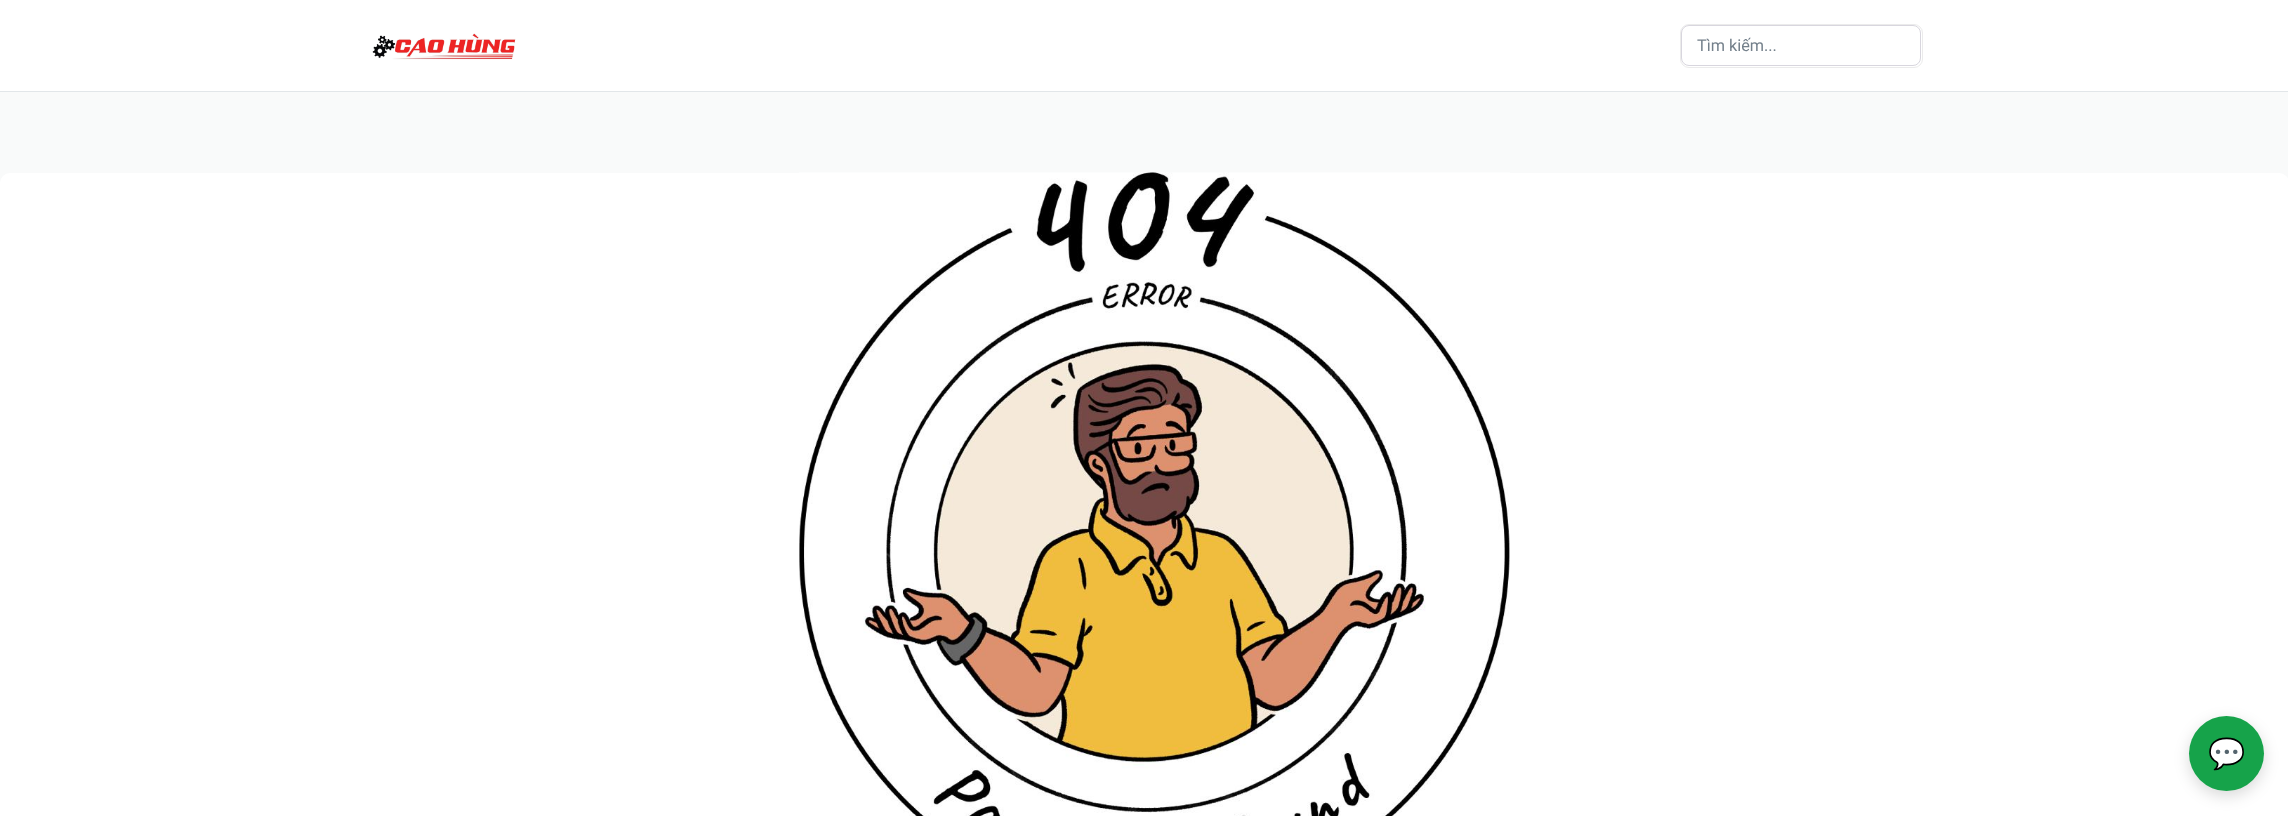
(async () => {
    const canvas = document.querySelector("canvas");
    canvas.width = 2288;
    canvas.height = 816;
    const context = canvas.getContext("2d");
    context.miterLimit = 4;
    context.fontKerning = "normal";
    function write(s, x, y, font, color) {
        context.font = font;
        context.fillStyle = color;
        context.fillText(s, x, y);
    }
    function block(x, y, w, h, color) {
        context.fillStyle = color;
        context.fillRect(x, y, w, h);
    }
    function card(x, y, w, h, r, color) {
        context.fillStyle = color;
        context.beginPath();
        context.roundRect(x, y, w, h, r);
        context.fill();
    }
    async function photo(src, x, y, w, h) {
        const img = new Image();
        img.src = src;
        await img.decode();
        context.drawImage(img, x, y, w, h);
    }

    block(0, 0, 2288, 816, "rgb(249, 250, 250)");
    block(0, 0, 2288, 91, "rgb(255, 255, 255)");
    block(0, 91, 2288, 1, "rgb(226, 230, 233)");
    await photo("media/1.png", 372, 33, 144, 27);
    context.beginPath();
    context.roundRect(1680.5, 24.5, 242, 43, 8.5);
    context.strokeStyle = "rgb(235, 235, 235)";
    context.stroke();
    context.beginPath();
    context.roundRect(1681.5, 25.5, 239, 40, 7.5);
    context.strokeStyle = "rgb(216, 214, 222)";
    context.stroke();
    write("Tìm kiếm...", 1697, 51, "16.25px Roboto", "rgb(116, 128, 139)");
    card(0, 173, 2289, 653, 10, "rgb(255, 255, 255)");
    await photo("media/2.png", 799, 172, 711, 644);
    context.fillStyle = "rgba(0, 0, 0, 0.15)";
    context.filter = "blur(7.5px)";
    context.beginPath();
    context.roundRect(2189, 721, 75, 75, 37.5);
    context.fill();
    context.filter = "none";
    context.fillStyle = "rgb(22, 163, 74)";
    context.beginPath();
    context.arc(2226.5, 753.5, 37.5, 0, Math.PI * 2);
    context.fill();
    write("💬", 2208, 764, "30px Noto Color Emoji", "rgb(255, 255, 255)");
})();
